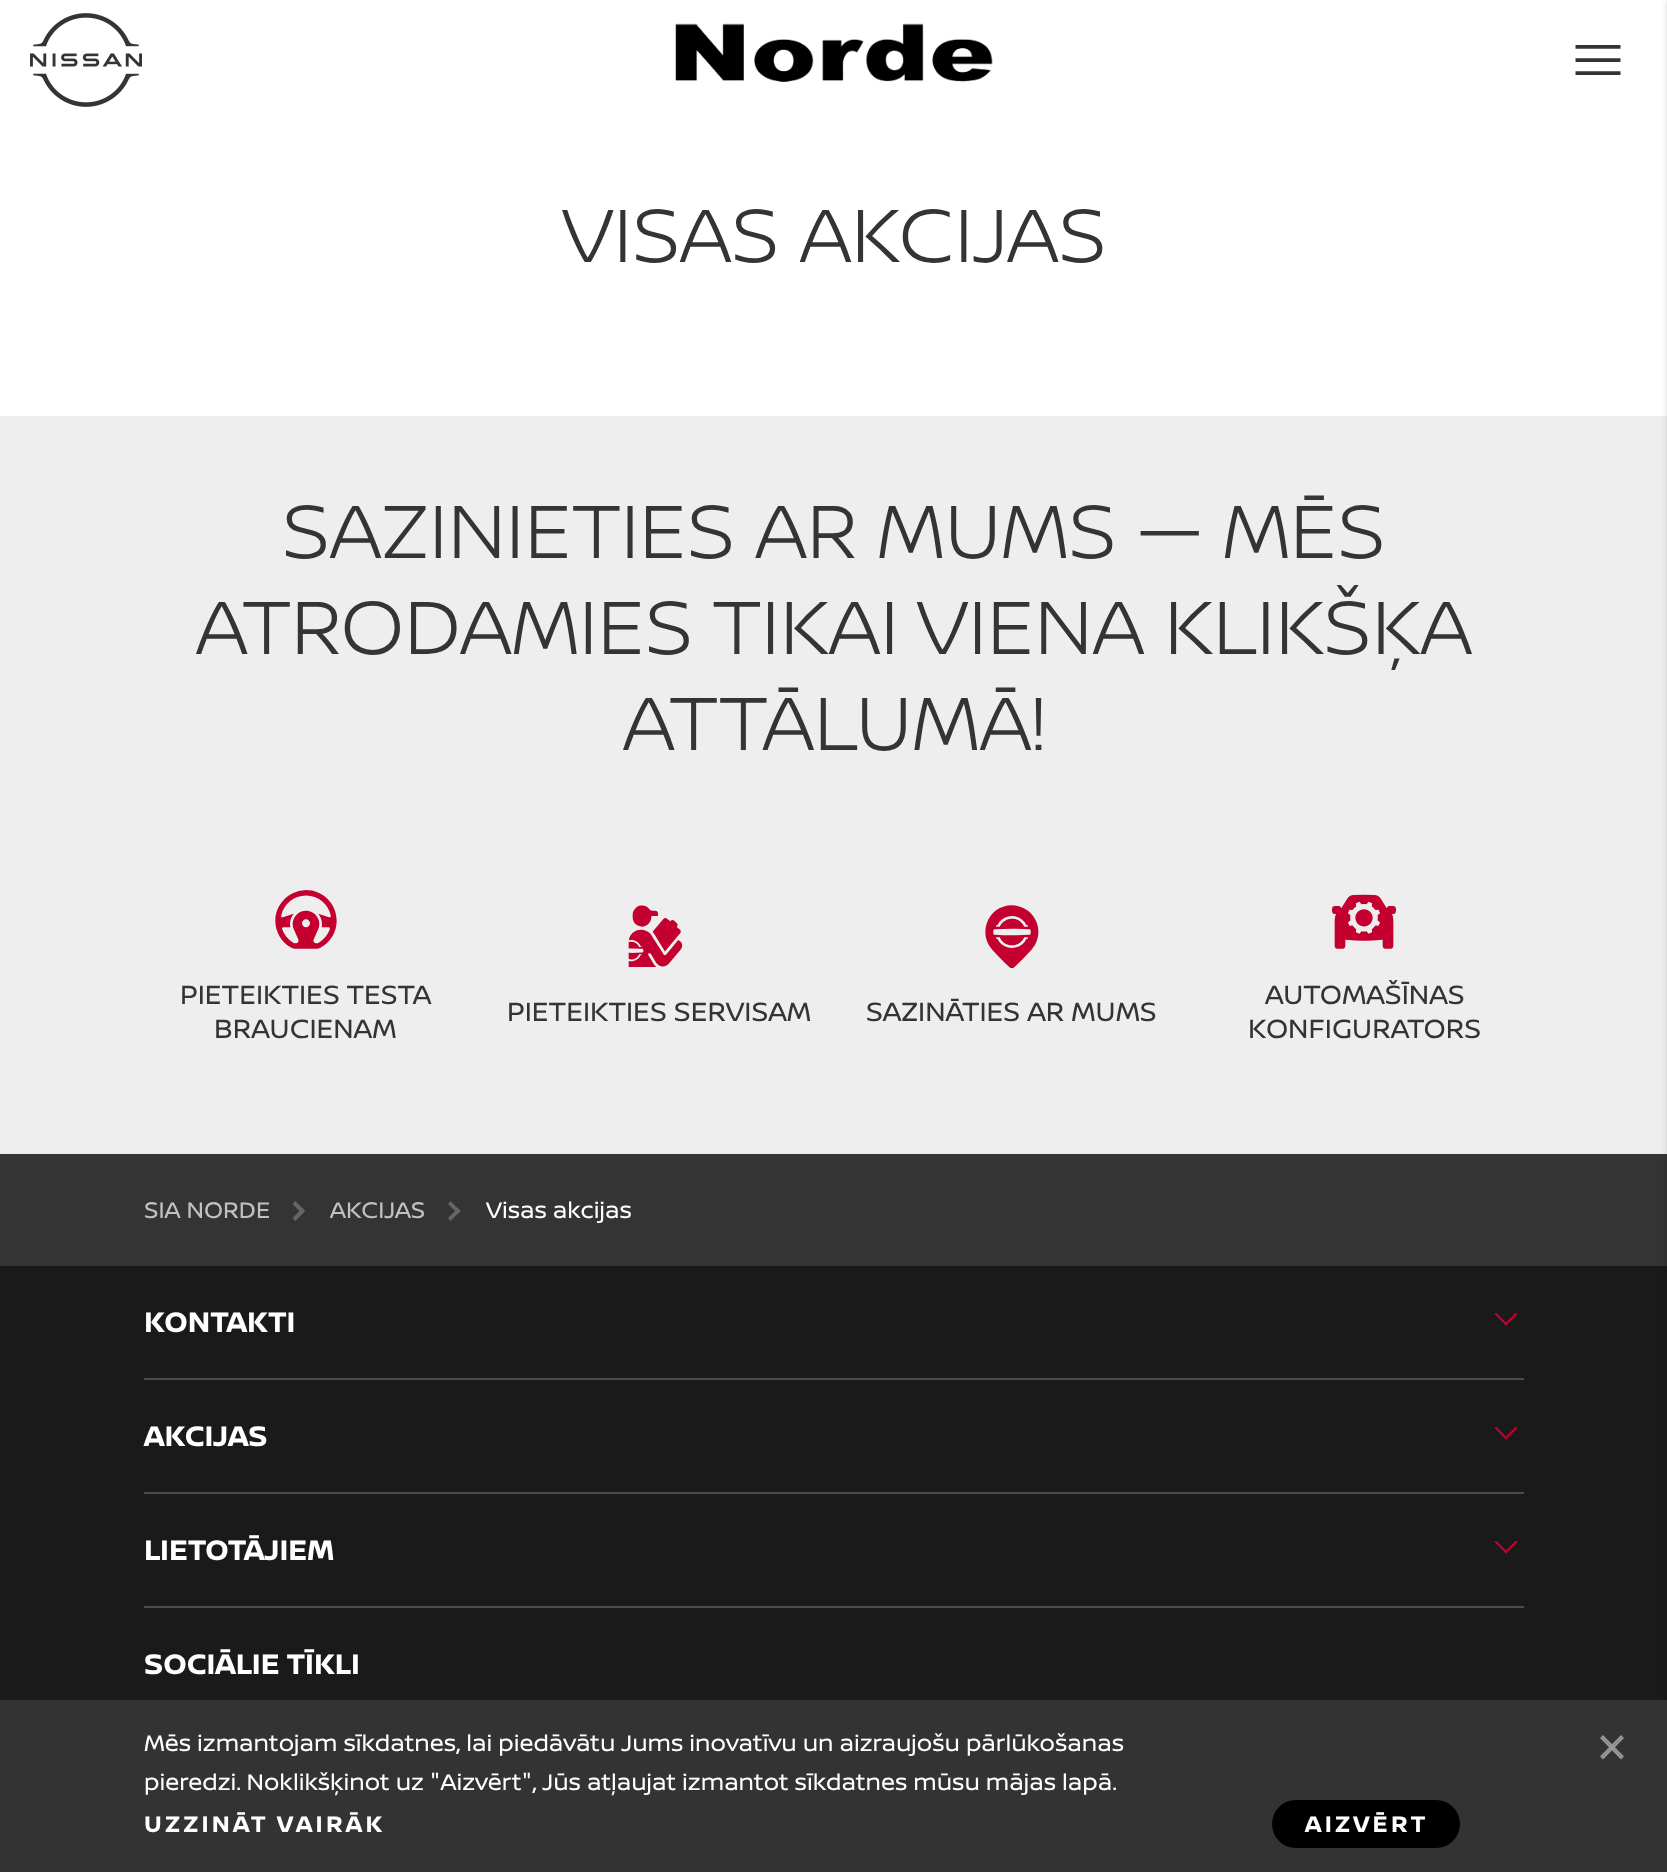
(async () => {
    const canvas = document.querySelector("canvas");
    canvas.width = 1667;
    canvas.height = 1872;
    const context = canvas.getContext("2d");
    context.miterLimit = 4;
    context.fontKerning = "normal";
    function write(s, x, y, font, color) {
        context.font = font;
        context.fillStyle = color;
        context.fillText(s, x, y);
    }
    function block(x, y, w, h, color) {
        context.fillStyle = color;
        context.fillRect(x, y, w, h);
    }
    function card(x, y, w, h, r, color) {
        context.fillStyle = color;
        context.beginPath();
        context.roundRect(x, y, w, h, r);
        context.fill();
    }
    async function photo(src, x, y, w, h) {
        const img = new Image();
        img.src = src;
        await img.decode();
        context.drawImage(img, x, y, w, h);
    }

    block(0, 0, 1667, 1872, "rgb(255, 255, 255)");
    await photo("media/1.png", 30, 13, 112, 94);
    await photo("media/2.png", 675, 23, 318, 59);
    await photo("media/3.png", 1575, 45, 46, 30);
    block(0, 416, 1667, 738, "rgb(238, 238, 238)");
    block(0, 1154, 1667, 112, "rgb(52, 52, 52)");
    block(0, 1266, 1667, 434, "rgb(26, 26, 26)");
    context.fillStyle = "rgba(0, 0, 0, 0.2)";
    context.filter = "blur(3px)";
    context.beginPath();
    context.rect(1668, 0, 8, 1872);
    context.fill();
    context.filter = "none";
    write("VISAS AKCIJAS", 562, 262, "300 80px 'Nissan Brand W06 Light'", "rgb(52, 52, 52)");
    write("SAZINIETIES AR MUMS — MĒS", 282, 558, "300 80px 'Nissan Brand W06 Light'", "rgb(52, 52, 52)");
    write("ATRODAMIES TIKAI VIENA KLIKŠĶA", 196, 654, "300 80px 'Nissan Brand W06 Light'", "rgb(52, 52, 52)");
    write("ATTĀLUMĀ!", 623, 750, "300 80px 'Nissan Brand W06 Light'", "rgb(52, 52, 52)");
    await photo("media/4.png", 275, 890, 62, 59);
    write("PIETEIKTIES TESTA", 180, 1004, "28px 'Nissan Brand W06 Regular'", "rgb(52, 52, 52)");
    write("BRAUCIENAM", 214, 1038, "28px 'Nissan Brand W06 Regular'", "rgb(52, 52, 52)");
    await photo("media/5.png", 628, 905, 55, 62);
    write("PIETEIKTIES SERVISAM", 507, 1021, "28px 'Nissan Brand W06 Regular'", "rgb(52, 52, 52)");
    await photo("media/6.png", 985, 905, 54, 63);
    write("SAZINĀTIES AR MUMS", 866, 1021, "28px 'Nissan Brand W06 Regular'", "rgb(52, 52, 52)");
    await photo("media/7.png", 1332, 894, 64, 55);
    write("AUTOMAŠĪNAS", 1265, 1004, "28px 'Nissan Brand W06 Regular'", "rgb(52, 52, 52)");
    write("KONFIGURATORS", 1248, 1038, "28px 'Nissan Brand W06 Regular'", "rgb(52, 52, 52)");
    write("SIA NORDE", 144, 1218, "24px 'Nissan Brand W06 Regular'", "rgb(193, 193, 193)");
    context.fillStyle = "rgb(101, 101, 101)";
    context.beginPath();
    context.moveTo(295.5, 1201);
    context.lineTo(305, 1211);
    context.lineTo(302.5, 1214);
    context.lineTo(292.5, 1204);
    context.closePath();
    context.fill();
    context.beginPath();
    context.moveTo(302.5, 1208);
    context.lineTo(305, 1211);
    context.lineTo(295.5, 1221);
    context.lineTo(292.5, 1218);
    context.closePath();
    context.fill();
    write("AKCIJAS", 330, 1218, "24px 'Nissan Brand W06 Regular'", "rgb(193, 193, 193)");
    context.fillStyle = "rgb(101, 101, 101)";
    context.beginPath();
    context.moveTo(450.5, 1201);
    context.lineTo(460.5, 1211);
    context.lineTo(458, 1214);
    context.lineTo(448, 1204);
    context.closePath();
    context.fill();
    context.beginPath();
    context.moveTo(458, 1208);
    context.lineTo(460.5, 1211);
    context.lineTo(450.5, 1221);
    context.lineTo(448, 1218);
    context.closePath();
    context.fill();
    write("Visas akcijas", 486, 1218, "24px 'Nissan Brand W06 Regular'", "rgb(255, 255, 255)");
    block(144, 1378, 1380, 2, "rgb(76, 76, 76)");
    write("KONTAKTI", 144, 1332, "bold 30px 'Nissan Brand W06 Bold'", "rgb(255, 255, 255)");
    context.fillStyle = "rgb(195, 0, 47)";
    context.beginPath();
    context.moveTo(1517.5, 1314);
    context.lineTo(1506, 1325.5);
    context.lineTo(1504.5, 1324);
    context.lineTo(1516, 1312.5);
    context.closePath();
    context.fill();
    context.beginPath();
    context.moveTo(1507.5, 1324);
    context.lineTo(1506, 1325.5);
    context.lineTo(1494.5, 1314);
    context.lineTo(1496, 1312.5);
    context.closePath();
    context.fill();
    block(144, 1492, 1380, 2, "rgb(76, 76, 76)");
    write("AKCIJAS", 144, 1446, "bold 30px 'Nissan Brand W06 Bold'", "rgb(255, 255, 255)");
    context.fillStyle = "rgb(195, 0, 47)";
    context.beginPath();
    context.moveTo(1517.5, 1428);
    context.lineTo(1506, 1439.5);
    context.lineTo(1504.5, 1438);
    context.lineTo(1516, 1426.5);
    context.closePath();
    context.fill();
    context.beginPath();
    context.moveTo(1507.5, 1438);
    context.lineTo(1506, 1439.5);
    context.lineTo(1494.5, 1428);
    context.lineTo(1496, 1426.5);
    context.closePath();
    context.fill();
    block(144, 1606, 1380, 2, "rgb(76, 76, 76)");
    write("LIETOTĀJIEM", 144, 1560, "bold 30px 'Nissan Brand W06 Bold'", "rgb(255, 255, 255)");
    context.fillStyle = "rgb(195, 0, 47)";
    context.beginPath();
    context.moveTo(1517.5, 1542);
    context.lineTo(1506, 1553.5);
    context.lineTo(1504.5, 1552);
    context.lineTo(1516, 1540.5);
    context.closePath();
    context.fill();
    context.beginPath();
    context.moveTo(1507.5, 1552);
    context.lineTo(1506, 1553.5);
    context.lineTo(1494.5, 1542);
    context.lineTo(1496, 1540.5);
    context.closePath();
    context.fill();
    write("SOCIĀLIE TĪKLI", 144, 1674, "bold 30px 'Nissan Brand W06 Bold'", "rgb(255, 255, 255)");
    block(0, 1700, 1667, 172, "rgb(51, 51, 51)");
    write("Mēs izmantojam sīkdatnes, lai piedāvātu Jums inovatīvu un aizraujošu pārlūkošanas", 144, 1751, "24px 'Nissan Brand W06 Regular'", "rgb(255, 255, 255)");
    write("pieredzi. Noklikšķinot uz \"Aizvērt\", Jūs atļaujat izmantot sīkdatnes mūsu mājas lapā.", 144, 1790, "24px 'Nissan Brand W06 Regular'", "rgb(255, 255, 255)");
    context.letterSpacing = "3.25px";
    write("UZZINĀT VAIRĀK", 144, 1832, "bold 24px 'Nissan Brand W06 Bold'", "rgb(255, 255, 255)");
    card(1272, 1800, 188, 48, 24, "rgb(0, 0, 0)");
    write("AIZVĒRT", 1305, 1832, "bold 24px 'Nissan Brand W06 Bold'", "rgb(255, 255, 255)");
    context.fillStyle = "rgb(153, 153, 153)";
    context.beginPath();
    context.moveTo(1600, 1756.5);
    context.lineTo(1621, 1735);
    context.lineTo(1622.5, 1736.5);
    context.lineTo(1601.5, 1758);
    context.closePath();
    context.fill();
    context.beginPath();
    context.moveTo(1601.5, 1758);
    context.lineTo(1622.5, 1736.5);
    context.lineTo(1624, 1738);
    context.lineTo(1603, 1759.5);
    context.closePath();
    context.fill();
    context.beginPath();
    context.moveTo(1603, 1735);
    context.lineTo(1624, 1756.5);
    context.lineTo(1622.5, 1758);
    context.lineTo(1601.5, 1736.5);
    context.closePath();
    context.fill();
    context.beginPath();
    context.moveTo(1601.5, 1736.5);
    context.lineTo(1622.5, 1758);
    context.lineTo(1621, 1759.5);
    context.lineTo(1600, 1738);
    context.closePath();
    context.fill();
})();
